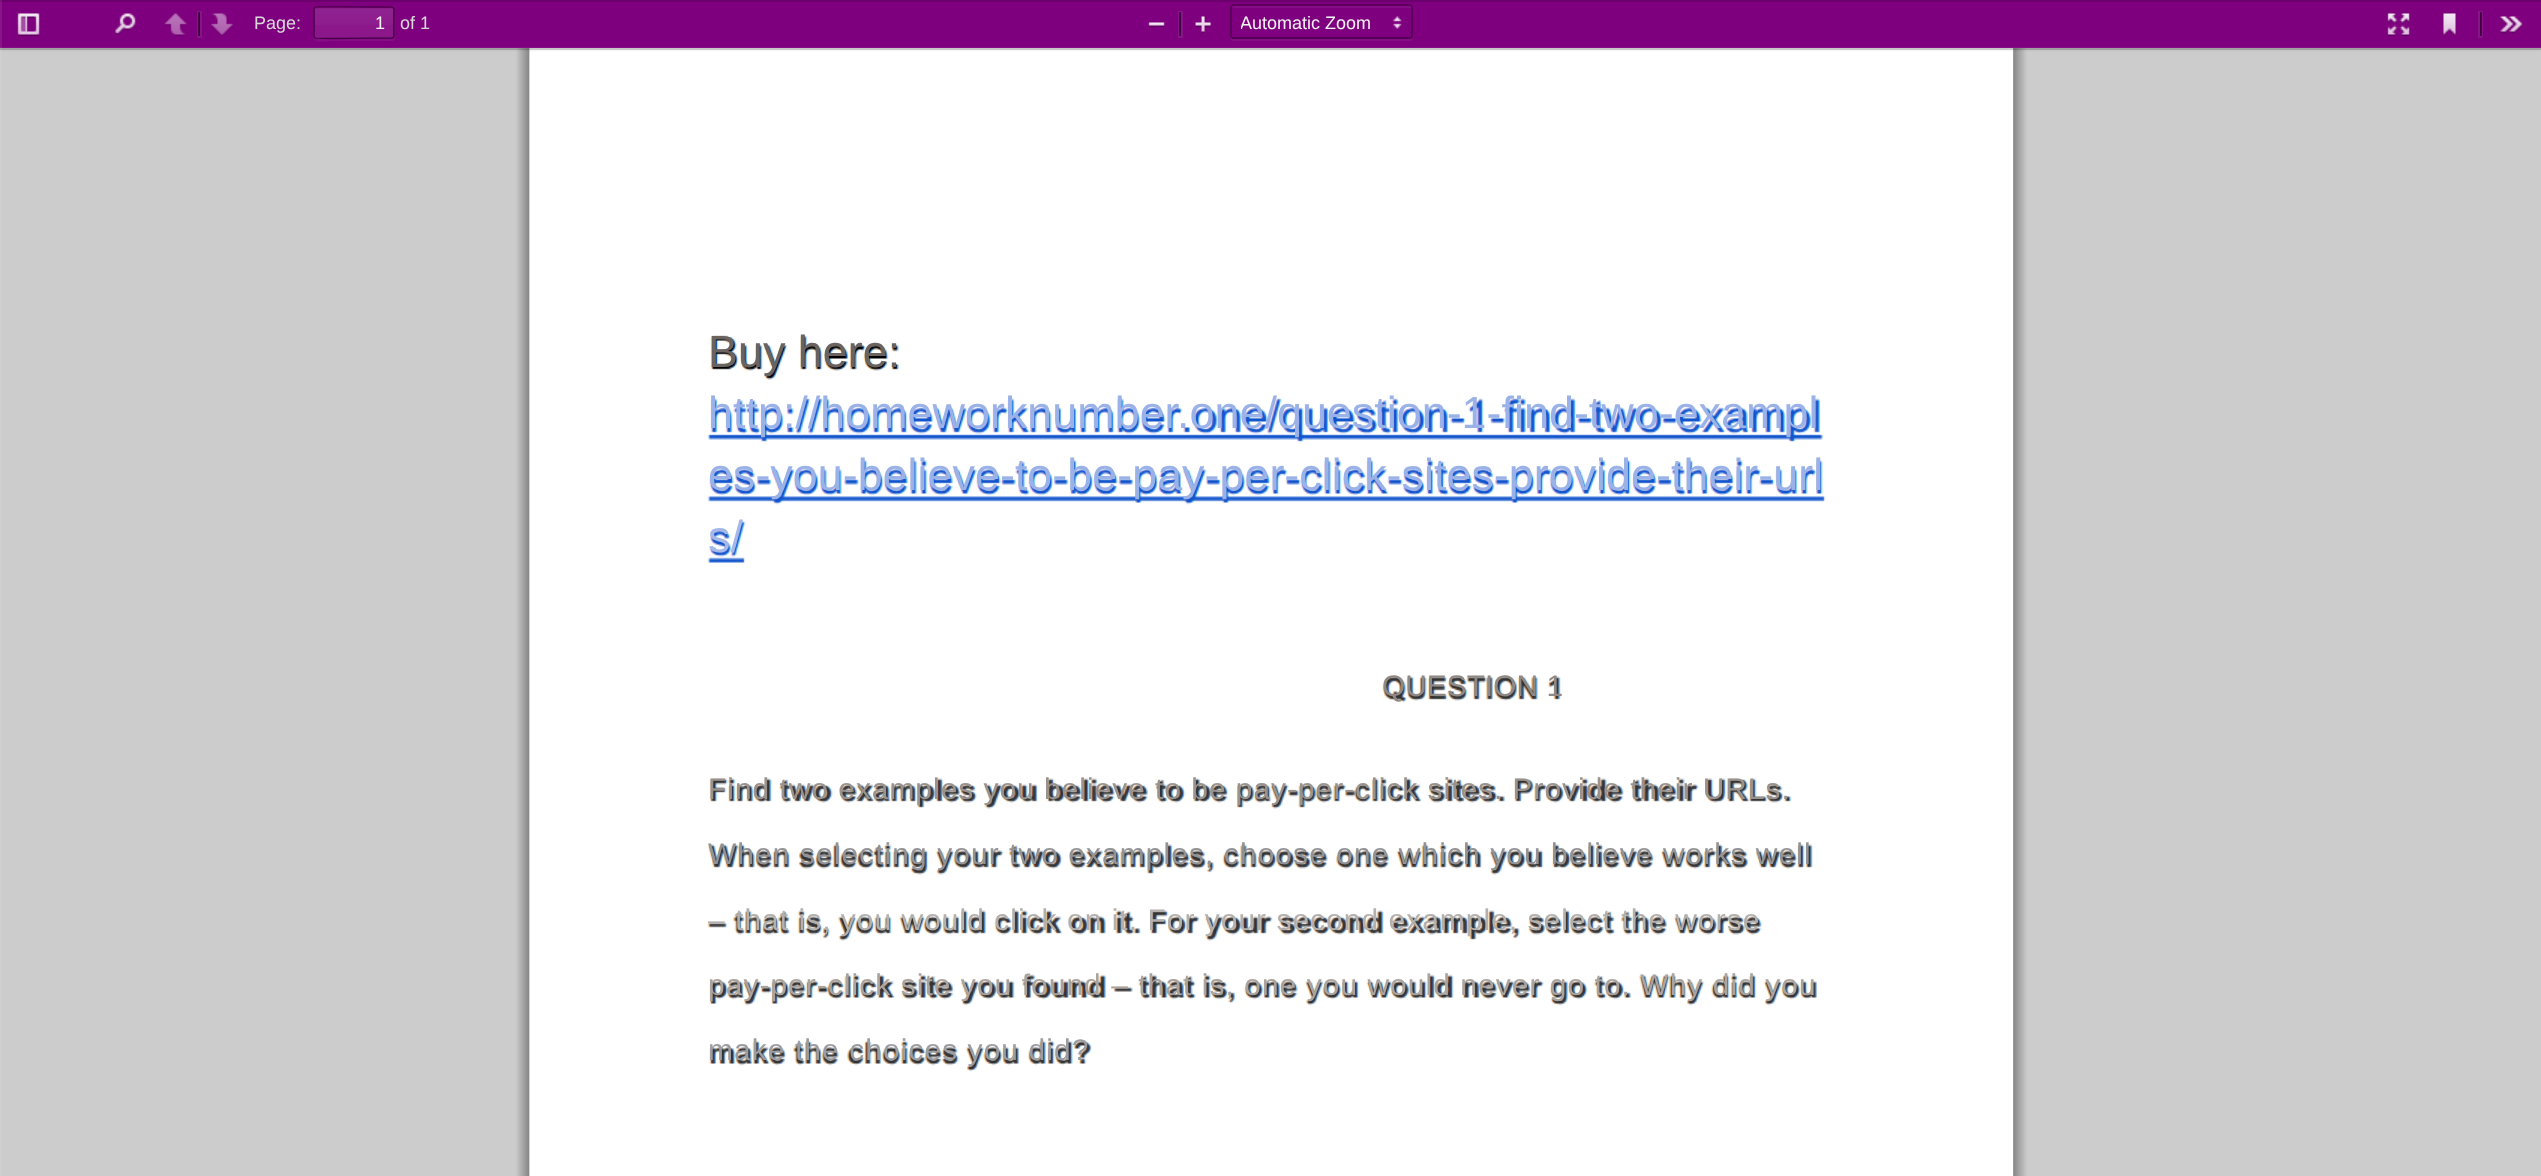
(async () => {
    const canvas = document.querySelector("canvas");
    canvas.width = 2541;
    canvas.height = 1176;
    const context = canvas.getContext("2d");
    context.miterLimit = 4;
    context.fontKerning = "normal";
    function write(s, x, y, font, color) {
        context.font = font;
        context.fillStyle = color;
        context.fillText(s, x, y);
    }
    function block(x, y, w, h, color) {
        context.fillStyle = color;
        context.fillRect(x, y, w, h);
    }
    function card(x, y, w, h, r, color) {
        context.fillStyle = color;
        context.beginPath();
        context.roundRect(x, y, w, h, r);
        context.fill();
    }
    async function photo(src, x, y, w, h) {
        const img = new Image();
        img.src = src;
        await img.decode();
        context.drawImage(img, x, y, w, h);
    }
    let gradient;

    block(0, 0, 2541, 1176, "rgb(204, 204, 204)");
    block(0, 48, 2, 1128, "rgb(207, 207, 207)");
    await photo("media/11.png", 516, 48, 1511, 1128);
    await photo("media/12.png", 529, 48, 1484, 1128);
    context.fillStyle = "rgba(0, 0, 0, 0.1)";
    context.filter = "blur(1px)";
    context.beginPath();
    context.rect(0, 2, 2541, 48);
    context.fill();
    context.filter = "none";
    block(0, 48, 2541, 2, "rgba(0, 0, 0, 0.15)");
    block(0, 2, 2541, 46, "rgb(127, 0, 127)");
    block(0, 47, 2541, 2, "rgba(255, 255, 255, 0.05)");
    block(0, 0, 2541, 2, "rgb(108, 0, 108)");
    block(0, 0, 2, 48, "rgba(255, 255, 255, 0.08)");
    await photo("media/1.png", 17, 13, 23, 23);
    await photo("media/2.png", 115, 13, 21, 22);
    await photo("media/3.png", 164, 13, 23, 23);
    context.strokeStyle = "rgb(137, 20, 137)";
    context.lineWidth = 2;
    context.strokeRect(198, 12, 3, 25);
    block(198, 12, 2, 24, "rgba(0, 0, 0, 0.5)");
    await photo("media/4.png", 211, 13, 22, 23);
    write("Page:", 254, 29, "18px Liberation Sans", "rgb(217, 217, 217)");
    context.fillStyle = "rgb(133, 13, 133)";
    context.beginPath();
    context.moveTo(314, 38);
    context.bezierCurveTo(314, 44, 329, 41, 330, 41);
    context.lineTo(380, 41);
    context.bezierCurveTo(396, 41, 395, 44, 395, 29);
    context.bezierCurveTo(395, 26, 396, 11, 394, 9);
    context.lineTo(394, 36);
    context.bezierCurveTo(394, 38, 393, 39, 392, 39);
    context.lineTo(316, 39);
    context.bezierCurveTo(315, 39, 315, 38, 314, 38);
    context.closePath();
    context.fill();
    card(315, 8, 78, 30, 1.5, "rgb(139, 23, 139)");
    gradient = context.createLinearGradient(354, 7.5, 354, 38);
    gradient.addColorStop(0, "rgba(255, 255, 255, 0.05)");
    gradient.addColorStop(1, "rgba(255, 255, 255, 0)");
    context.fillStyle = gradient;
    context.fillRect(315, 8, 78, 17);
    context.fillStyle = "rgba(0, 0, 0, 0.05)";
    context.beginPath();
    context.moveTo(316, 9);
    context.lineTo(392, 9);
    context.lineTo(393, 10);
    context.bezierCurveTo(393, 9, 393, 8, 392, 8);
    context.lineTo(316, 8);
    context.bezierCurveTo(315, 8, 315, 9, 315, 10);
    context.closePath();
    context.fill();
    context.beginPath();
    context.moveTo(315, 7.5);
    context.lineTo(315.5, 7);
    context.bezierCurveTo(317, 6, 372.5, 7, 379, 7);
    context.lineTo(391.5, 7);
    context.lineTo(393, 7.5);
    context.strokeStyle = "rgb(86, 0, 86)";
    context.lineWidth = 1.5;
    context.stroke();
    context.beginPath();
    context.moveTo(393, 7.5);
    context.bezierCurveTo(393.5, 8, 394, 8.5, 394, 9);
    context.lineTo(394, 36);
    context.bezierCurveTo(394, 36.5, 393.5, 37, 393, 37.5);
    context.strokeStyle = "rgba(0, 0, 0, 0.38)";
    context.stroke();
    context.beginPath();
    context.moveTo(393, 37.5);
    context.lineTo(391.5, 38);
    context.lineTo(379, 38);
    context.bezierCurveTo(372.5, 38, 317, 39, 315.5, 38);
    context.lineTo(315, 37.5);
    context.strokeStyle = "rgba(0, 0, 0, 0.42)";
    context.stroke();
    context.beginPath();
    context.moveTo(315, 37.5);
    context.bezierCurveTo(314.5, 37, 314, 36.5, 314, 36);
    context.lineTo(314, 9);
    context.bezierCurveTo(314, 8.5, 314.5, 8, 315, 7.5);
    context.strokeStyle = "rgba(0, 0, 0, 0.38)";
    context.stroke();
    write("1", 375, 29, "18px Liberation Sans", "rgb(242, 242, 242)");
    write("of 1", 400, 29, "18px Liberation Sans", "rgb(217, 217, 217)");
    await photo("media/5.png", 1148, 22, 17, 6);
    context.strokeStyle = "rgb(137, 20, 137)";
    context.lineWidth = 2;
    context.strokeRect(1179, 12, 3, 25);
    block(1179, 12, 2, 24, "rgba(0, 0, 0, 0.5)");
    await photo("media/6.png", 1195, 16, 16, 18);
    context.fillStyle = "rgb(133, 13, 133)";
    context.beginPath();
    context.moveTo(1230, 36);
    context.bezierCurveTo(1230, 38, 1230, 41, 1233, 41);
    context.lineTo(1410, 41);
    context.bezierCurveTo(1413, 41, 1413, 38, 1413, 36);
    context.bezierCurveTo(1413, 38, 1412, 39, 1410, 39);
    context.lineTo(1233, 39);
    context.bezierCurveTo(1231, 39, 1230, 38, 1230, 36);
    context.closePath();
    context.fill();
    await photo("media/7.png", 1393, 16, 9, 13);
    context.beginPath();
    context.moveTo(1233, 8);
    context.lineTo(1410, 8);
    context.lineTo(1412, 9);
    context.bezierCurveTo(1412, 8, 1412, 6, 1410, 6);
    context.lineTo(1233, 6);
    context.bezierCurveTo(1232, 7, 1232, 8, 1232, 9);
    context.bezierCurveTo(1232, 8, 1232, 8, 1233, 8);
    context.closePath();
    context.fill();
    context.beginPath();
    context.moveTo(1231.5, 6);
    context.lineTo(1233, 5);
    context.lineTo(1410, 5);
    context.lineTo(1411.5, 6);
    context.strokeStyle = "rgb(86, 0, 86)";
    context.lineWidth = 1.5;
    context.stroke();
    context.beginPath();
    context.moveTo(1411.5, 6);
    context.bezierCurveTo(1412, 6.5, 1412, 7, 1412, 7.5);
    context.lineTo(1412, 36);
    context.bezierCurveTo(1412, 36.5, 1412, 37, 1411.5, 37.5);
    context.strokeStyle = "rgba(0, 0, 0, 0.38)";
    context.stroke();
    context.beginPath();
    context.moveTo(1411.5, 37.5);
    context.lineTo(1410, 38);
    context.lineTo(1233, 38);
    context.lineTo(1231.5, 37.5);
    context.strokeStyle = "rgba(0, 0, 0, 0.42)";
    context.stroke();
    context.beginPath();
    context.moveTo(1231.5, 37.5);
    context.bezierCurveTo(1231, 37, 1231, 36.5, 1231, 36);
    context.lineTo(1231, 7.5);
    context.bezierCurveTo(1231, 7, 1231, 6.5, 1231.5, 6);
    context.strokeStyle = "rgba(0, 0, 0, 0.38)";
    context.stroke();
    context.save();
    context.beginPath();
    context.rect(1241, 11, 177, 24);
    context.clip();
    write("Automatic Zoom", 1240, 29, "18px Liberation Sans", "rgb(242, 242, 242)");
    context.restore();
    await photo("media/8.png", 2387, 13, 23, 23);
    await photo("media/9.png", 2443, 13, 13, 23);
    context.strokeStyle = "rgb(137, 20, 137)";
    context.lineWidth = 2;
    context.strokeRect(2479, 12, 3, 25);
    block(2480, 12, 2, 24, "rgba(0, 0, 0, 0.5)");
    await photo("media/10.png", 2500, 16, 23, 18);
    write("Buy here:", 708, 367, "44.9px Liberation Sans", "rgb(106, 99, 96)");
    write("http://homeworknumber.one/question-1-find-two-exampl", 708, 428, "44.9px Liberation Sans", "rgb(154, 178, 231)");
    write("es-you-believe-to-be-pay-per-click-sites-provide-their-url", 708, 490, "44.9px Liberation Sans", "rgb(154, 178, 231)");
    write("s/", 708, 552, "44.9px Liberation Sans", "rgb(165, 184, 232)");
    write("QUESTION 1", 1382, 696, "29.9px Liberation Sans", "rgb(143, 136, 132)");
    context.letterSpacing = "1px";
    write("Find two examples you believe to be pay-per-click sites. Provide their URLs.", 708, 799, "29.9px Liberation Sans", "rgb(154, 147, 141)");
    context.letterSpacing = "1.1px";
    write("When selecting your two examples, choose one which you believe works well", 708, 864, "29.9px Liberation Sans", "rgb(147, 147, 150)");
    context.letterSpacing = "1.05px";
    write("– that is, you would click on it. For your second example, select the worse", 708, 930, "29.9px Liberation Sans", "rgb(179, 176, 173)");
    context.letterSpacing = "1.07px";
    write("pay-per-click site you found – that is, one you would never go to. Why did you", 708, 995, "29.9px Liberation Sans", "rgb(171, 163, 157)");
    context.letterSpacing = "1.1px";
    write("make the choices you did?", 708, 1060, "29.9px Liberation Sans", "rgb(156, 157, 161)");
})();
